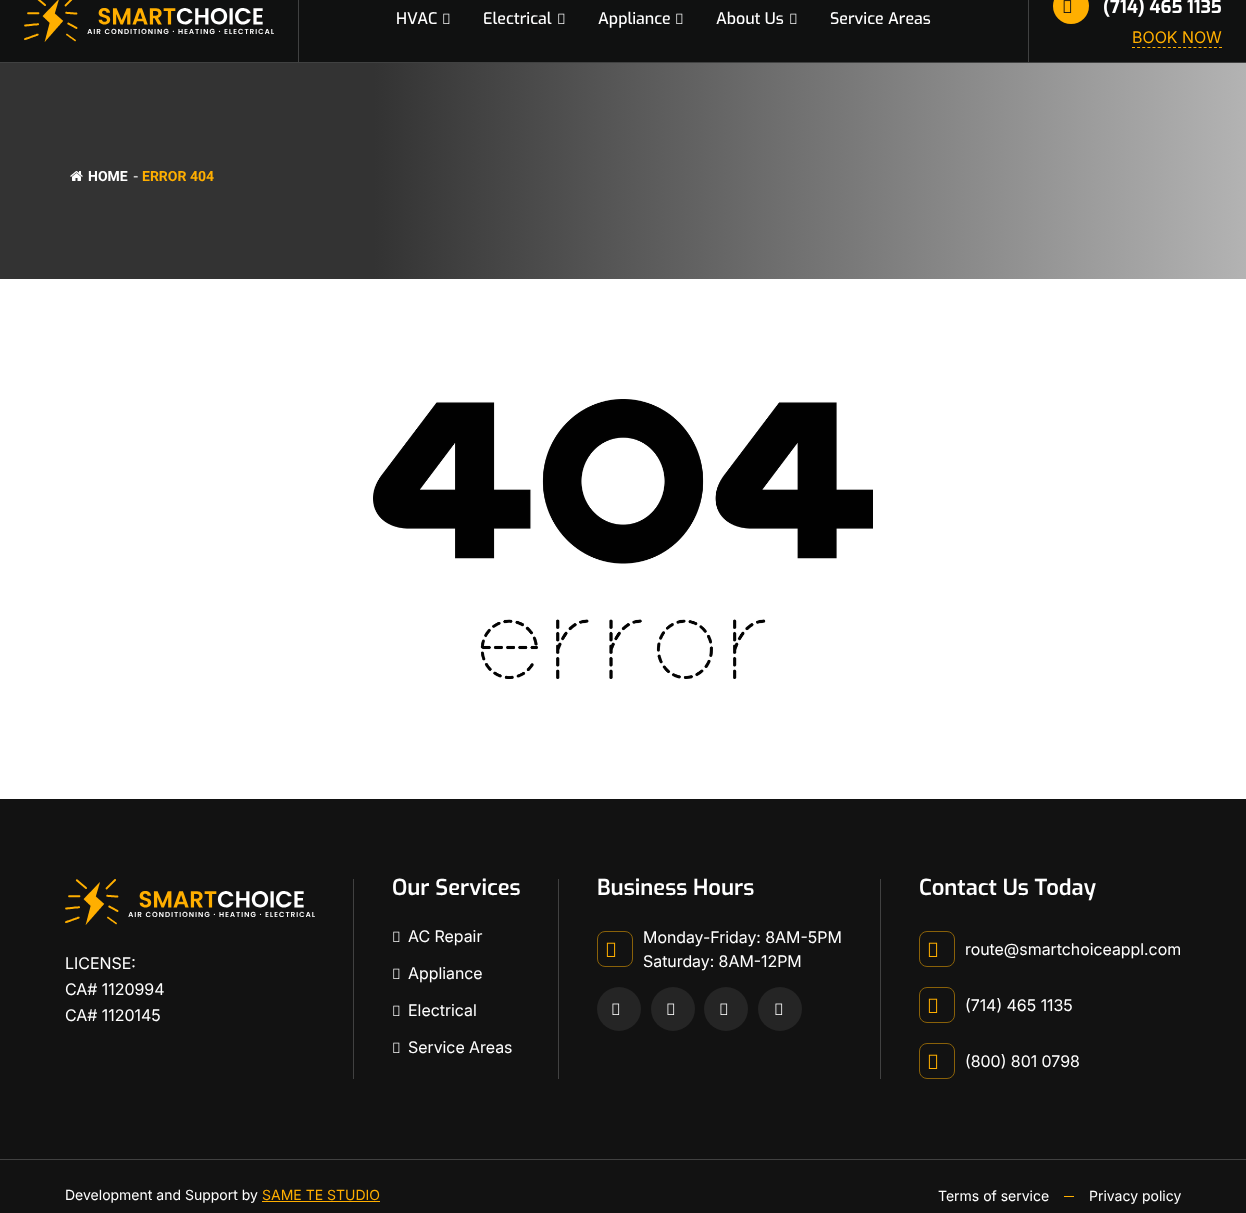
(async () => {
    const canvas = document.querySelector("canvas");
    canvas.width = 1246;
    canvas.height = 1213;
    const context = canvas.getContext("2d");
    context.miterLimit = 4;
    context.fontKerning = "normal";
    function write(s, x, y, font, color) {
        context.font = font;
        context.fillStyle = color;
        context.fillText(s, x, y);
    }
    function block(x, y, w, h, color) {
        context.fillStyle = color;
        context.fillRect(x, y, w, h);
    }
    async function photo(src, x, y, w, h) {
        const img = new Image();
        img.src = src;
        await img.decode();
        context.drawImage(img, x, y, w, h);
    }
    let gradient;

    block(0, 0, 1246, 1213, "rgb(255, 255, 255)");
    block(0, 0, 1246, 62, "rgb(16, 17, 17)");
    block(0, 62, 1246, 1, "rgb(64, 65, 65)");
    block(298, 0, 1, 62, "rgb(64, 65, 65)");
    await photo("media/1.png", 24, 0, 250, 42);
    write("HVAC", 396, 24, "500 16px Exo", "rgb(255, 255, 255)");
    await photo("media/2.png", 443, 13, 7, 11);
    write("Electrical", 483, 24, "500 16px Exo", "rgb(255, 255, 255)");
    await photo("media/2.png", 558, 13, 7, 11);
    write("Appliance", 598, 24, "500 16px Exo", "rgb(255, 255, 255)");
    await photo("media/2.png", 676, 13, 7, 11);
    write("About Us", 716, 24, "500 16px Exo", "rgb(255, 255, 255)");
    await photo("media/2.png", 790, 13, 7, 11);
    write("Service Areas", 830, 24, "500 16px Exo", "rgb(255, 255, 255)");
    block(1028, 0, 1, 62, "rgb(64, 65, 65)");
    context.fillStyle = "rgb(255, 175, 0)";
    context.beginPath();
    context.arc(1071, 6, 18, 0, Math.PI * 2);
    context.fill();
    await photo("media/3.png", 1063, 0, 9, 13);
    write("(714) 465 1135", 1103, 13, "bold 18px Exo", "rgb(255, 255, 255)");
    write("BOOK NOW", 1132, 43, "16px 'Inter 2'", "rgb(255, 175, 0)");
    context.beginPath();
    context.moveTo(1132, 47.5);
    context.lineTo(1222, 47.5);
    context.strokeStyle = "rgb(255, 175, 0)";
    context.setLineDash([3, 2.12]);
    context.stroke();
    gradient = context.createLinearGradient(0, 171, 1246, 171);
    gradient.addColorStop(0.3, "rgb(51, 51, 51)");
    gradient.addColorStop(1, "rgb(179, 179, 179)");
    context.fillStyle = gradient;
    context.fillRect(0, 63, 1246, 216);
    await photo("media/4.png", 70, 171, 13, 10);
    write("HOME", 88, 181, "bold 14px Roboto", "rgb(255, 255, 255)");
    write("-", 133, 181, "bold 14px Roboto", "rgb(204, 204, 204)");
    write("ERROR 404", 142, 181, "bold 14px Roboto", "rgb(255, 175, 0)");
    await photo("media/5.png", 373, 399, 500, 280);
    block(0, 799, 1246, 414, "rgb(18, 18, 18)");
    await photo("media/6.png", 65, 879, 250, 46);
    write("LICENSE:", 65, 969, "16px 'Inter 2'", "rgb(255, 255, 255)");
    write("CA# 1120994", 65, 995, "16px 'Inter 2'", "rgb(255, 255, 255)");
    write("CA# 1120145", 65, 1021, "16px 'Inter 2'", "rgb(255, 255, 255)");
    block(353, 879, 1, 200, "rgb(65, 65, 65)");
    write("Our Services", 392, 895, "600 22px Exo", "rgb(255, 255, 255)");
    await photo("media/7.png", 393, 931, 7, 11);
    write("AC Repair", 408, 942, "16px 'Inter 2'", "rgb(255, 255, 255)");
    await photo("media/7.png", 393, 968, 7, 11);
    write("Appliance", 408, 979, "16px 'Inter 2'", "rgb(255, 255, 255)");
    await photo("media/7.png", 393, 1005, 7, 11);
    write("Electrical", 408, 1016, "16px 'Inter 2'", "rgb(255, 255, 255)");
    await photo("media/7.png", 393, 1042, 7, 11);
    write("Service Areas", 408, 1053, "16px 'Inter 2'", "rgb(255, 255, 255)");
    block(558, 879, 1, 200, "rgb(65, 65, 65)");
    write("Business Hours", 597, 895, "600 22px Exo", "rgb(255, 255, 255)");
    context.beginPath();
    context.roundRect(597.5, 931.5, 35, 35, 7.5);
    context.strokeStyle = "rgb(137, 97, 9)";
    context.setLineDash([]);
    context.stroke();
    await photo("media/8.png", 606, 942, 10, 15);
    write("Monday-Friday: 8AM-5PM", 643, 943, "16px 'Inter 2'", "rgb(255, 255, 255)");
    write("Saturday: 8AM-12PM", 643, 967, "16px 'Inter 2'", "rgb(255, 255, 255)");
    context.fillStyle = "rgb(37, 37, 37)";
    context.beginPath();
    context.arc(619, 1009, 22, 0, Math.PI * 2);
    context.fill();
    await photo("media/9.png", 612, 1003, 8, 12);
    context.beginPath();
    context.arc(673, 1009, 22, 0, Math.PI * 2);
    context.fill();
    await photo("media/9.png", 667, 1003, 8, 12);
    context.beginPath();
    context.arc(726, 1009, 22, 0, Math.PI * 2);
    context.fill();
    await photo("media/9.png", 720, 1003, 8, 12);
    context.beginPath();
    context.arc(780, 1009, 22, 0, Math.PI * 2);
    context.fill();
    await photo("media/9.png", 775, 1003, 8, 12);
    block(880, 879, 1, 200, "rgb(65, 65, 65)");
    write("Contact Us Today", 919, 895, "600 22px Exo", "rgb(255, 255, 255)");
    context.beginPath();
    context.roundRect(919.5, 931.5, 35, 35, 7.5);
    context.stroke();
    await photo("media/8.png", 928, 942, 10, 15);
    write("route@smartchoiceappl.com", 965, 955, "16px 'Inter 2'", "rgb(255, 255, 255)");
    context.beginPath();
    context.roundRect(919.5, 987.5, 35, 35, 7.5);
    context.stroke();
    await photo("media/8.png", 928, 998, 10, 15);
    write("(714) 465 1135", 965, 1011, "16px 'Inter 2'", "rgb(255, 255, 255)");
    context.beginPath();
    context.roundRect(919.5, 1043.5, 35, 35, 7.5);
    context.stroke();
    await photo("media/8.png", 928, 1054, 10, 15);
    write("(800) 801 0798", 965, 1067, "16px 'Inter 2'", "rgb(255, 255, 255)");
    block(0, 1159, 1246, 1, "rgb(65, 65, 65)");
    write("Development and Support by", 65, 1200, "14px Inter", "rgb(255, 255, 255)");
    write("SAME TE STUDIO", 262, 1200, "14px Inter", "rgb(255, 175, 0)");
    block(262, 1201, 118, 1, "rgb(255, 175, 0)");
    write("Terms of service", 938, 1201, "14px Inter", "rgb(255, 255, 255)");
    block(1064, 1196, 10, 1, "rgb(255, 175, 0)");
    write("Privacy policy", 1089, 1201, "14px Inter", "rgb(255, 255, 255)");
})();
